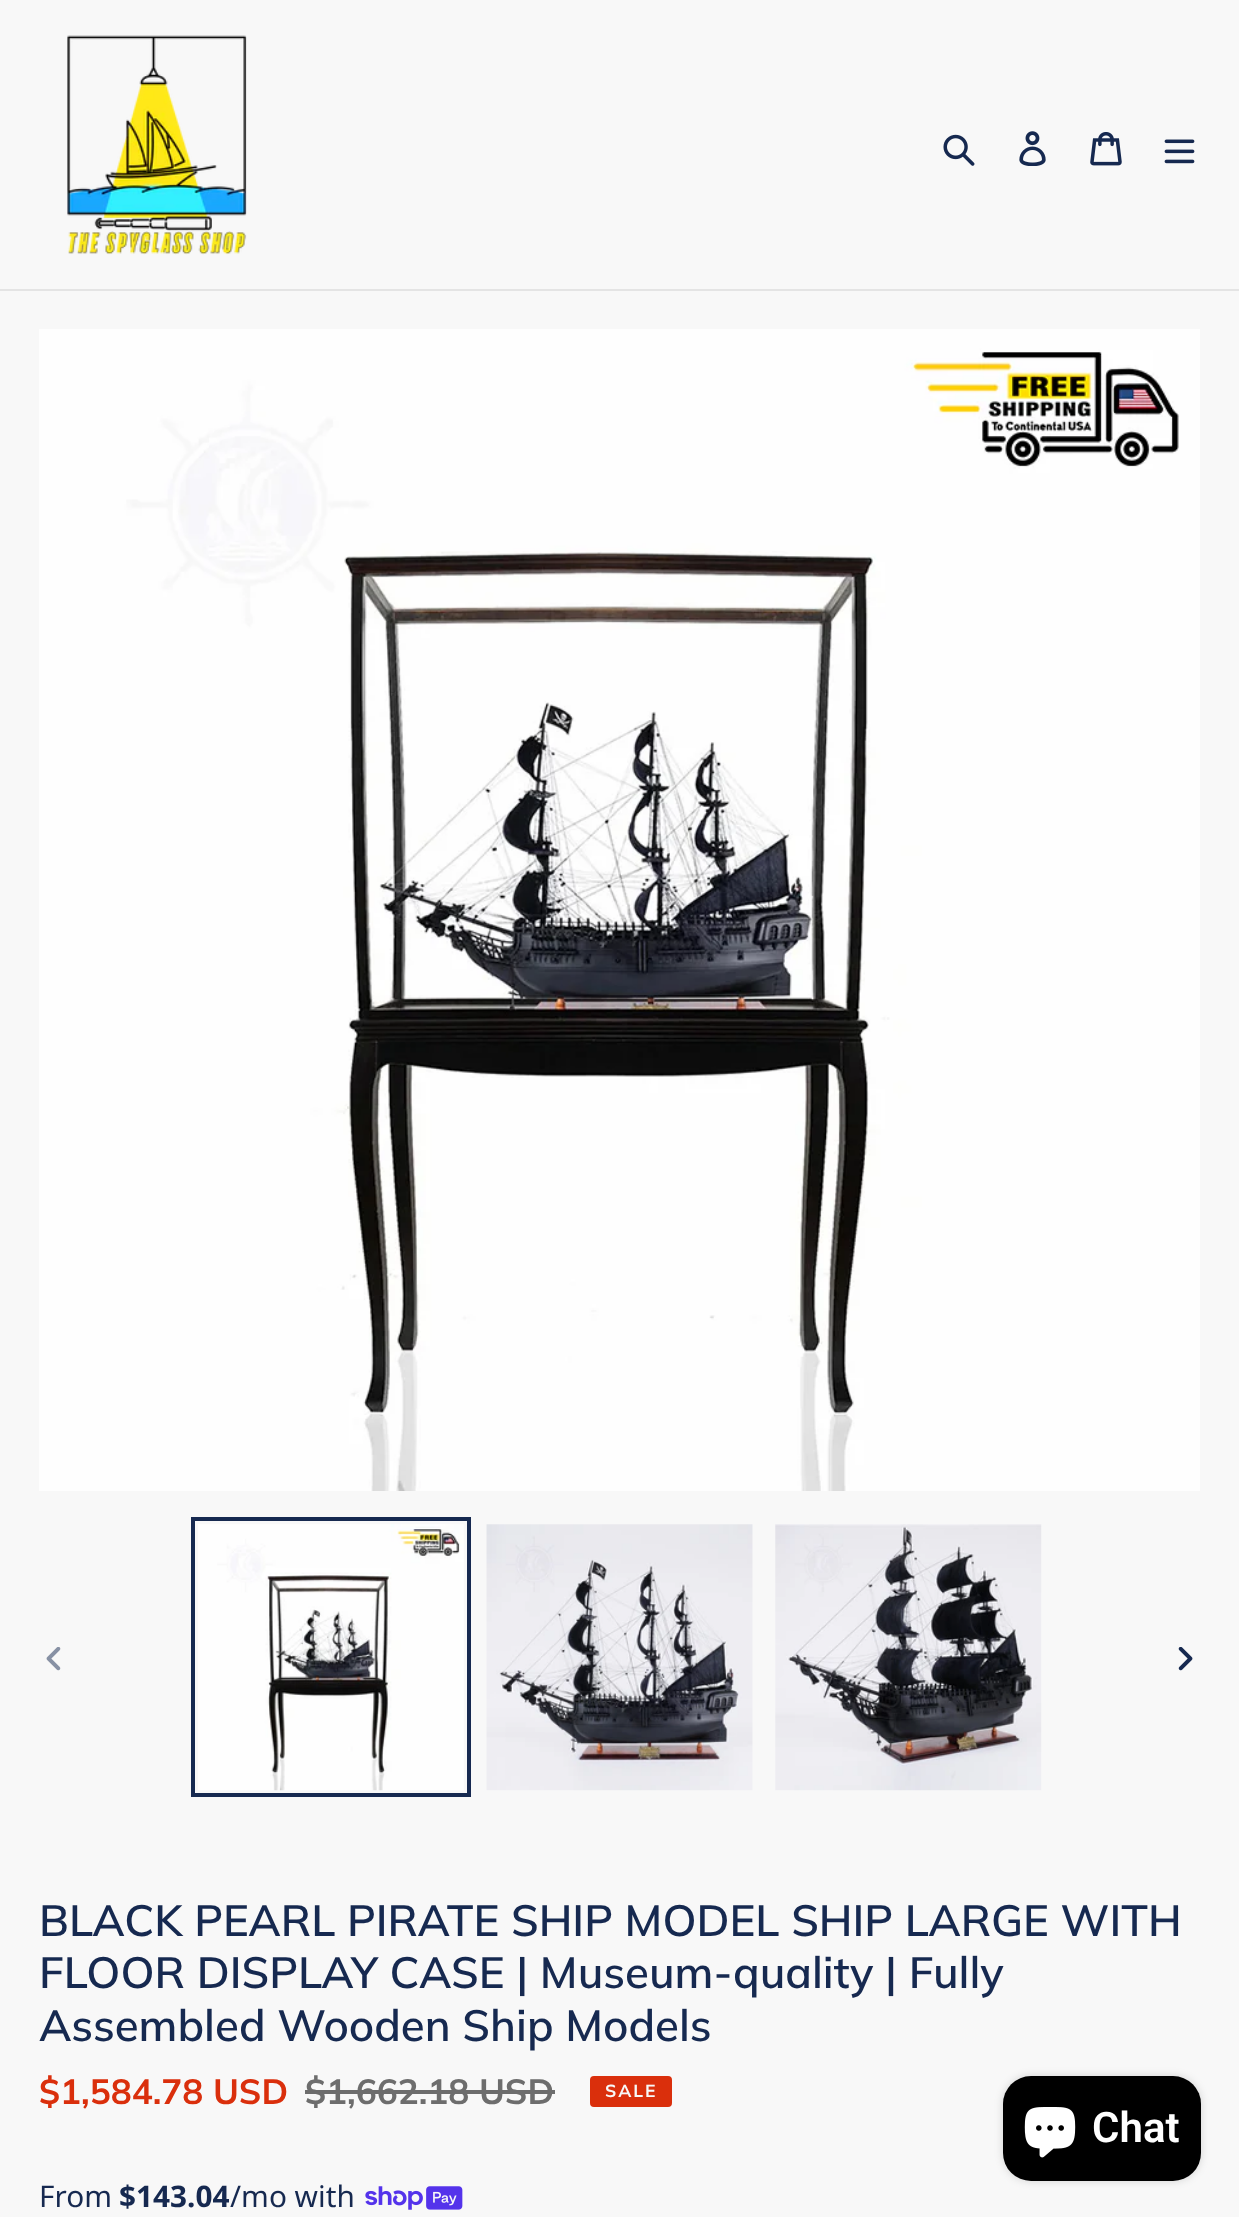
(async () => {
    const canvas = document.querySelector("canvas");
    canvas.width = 1239;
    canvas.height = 2217;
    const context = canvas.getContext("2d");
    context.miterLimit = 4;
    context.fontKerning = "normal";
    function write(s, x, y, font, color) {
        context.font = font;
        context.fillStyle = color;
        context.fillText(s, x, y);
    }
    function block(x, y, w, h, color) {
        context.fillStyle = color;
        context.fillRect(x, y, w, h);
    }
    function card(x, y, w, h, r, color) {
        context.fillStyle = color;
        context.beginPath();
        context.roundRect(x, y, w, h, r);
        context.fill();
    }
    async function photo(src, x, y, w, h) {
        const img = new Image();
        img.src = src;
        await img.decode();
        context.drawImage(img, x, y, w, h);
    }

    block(0, 0, 1239, 2217, "rgb(248, 248, 248)");
    block(0, 289, 1239, 2, "rgb(228, 228, 228)");
    await photo("media/1.png", 67, 35, 180, 220);
    await photo("media/2.png", 943, 134, 32, 32);
    await photo("media/3.png", 1019, 131, 27, 35);
    await photo("media/4.png", 1090, 132, 32, 34);
    await photo("media/5.png", 1164, 139, 31, 25);
    await photo("media/6.png", 39, 329, 1161, 1162);
    await photo("media/7.png", 46, 1647, 15, 24);
    context.strokeStyle = "rgb(22, 41, 80)";
    context.lineWidth = 4;
    context.strokeRect(193, 1519, 276, 276);
    await photo("media/8.png", 198, 1524, 266, 267);
    await photo("media/9.png", 486, 1524, 267, 267);
    await photo("media/10.png", 775, 1524, 267, 267);
    await photo("media/11.png", 1178, 1647, 15, 24);
    write("BLACK PEARL PIRATE SHIP MODEL SHIP LARGE WITH", 39, 1936, "600 43.75px Muli", "rgb(22, 41, 80)");
    write("FLOOR DISPLAY CASE | Museum-quality | Fully", 39, 1988, "600 43.75px Muli", "rgb(22, 41, 80)");
    write("Assembled Wooden Ship Models", 39, 2041, "600 43.75px Muli", "rgb(22, 41, 80)");
    write("$1,584.78 USD", 39, 2104, "bold 35px Muli", "rgb(218, 47, 12)");
    write("$1,662.18 USD", 305, 2104, "bold 35px Muli", "rgb(109, 109, 109)");
    block(305, 2090, 250, 4, "rgb(109, 109, 109)");
    context.fillStyle = "rgb(218, 47, 12)";
    context.beginPath();
    context.roundRect(591, 2077, 80, 29, 3);
    context.fill();
    context.strokeStyle = "rgb(218, 47, 12)";
    context.lineWidth = 2;
    context.stroke();
    context.letterSpacing = "2px";
    write("SALE", 605, 2097, "bold 17.5px Muli", "rgb(248, 248, 248)");
    context.letterSpacing = "0px";
    write("From", 39, 2207, "29.75px Noto Sans", "rgb(22, 41, 80)");
    write("$143.04", 119, 2207, "bold 29.75px Noto Sans", "rgb(22, 41, 80)");
    write("/mo with", 230, 2207, "29.75px Noto Sans", "rgb(22, 41, 80)");
    await photo("media/12.png", 365, 2186, 98, 24);
    context.fillStyle = "rgba(0, 0, 0, 0.15)";
    context.filter = "blur(4.5px)";
    context.beginPath();
    context.roundRect(1003, 2076, 198, 105, 28);
    context.fill();
    context.filter = "none";
    card(1003, 2076, 198, 105, 28, "rgb(0, 0, 0)");
    await photo("media/13.png", 1024, 2107, 52, 51);
    write("Chat", 1092, 2142, "600 42px Roboto", "rgb(255, 255, 255)");
})();
